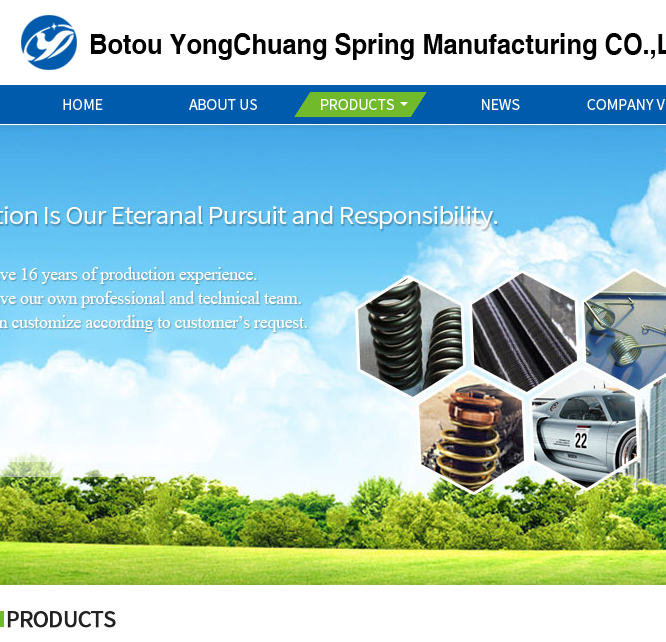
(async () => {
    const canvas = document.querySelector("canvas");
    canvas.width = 666;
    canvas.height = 642;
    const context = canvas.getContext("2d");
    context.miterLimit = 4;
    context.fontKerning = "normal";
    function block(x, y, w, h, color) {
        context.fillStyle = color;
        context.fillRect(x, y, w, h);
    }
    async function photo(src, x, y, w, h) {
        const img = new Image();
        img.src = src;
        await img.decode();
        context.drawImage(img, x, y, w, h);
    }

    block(0, 0, 666, 642, "rgb(255, 255, 255)");
    await photo("media/1.png", 21, 15, 645, 55);
    block(0, 85, 666, 39, "rgb(0, 91, 172)");
    await photo("media/2.png", 63, 99, 40, 11);
    await photo("media/3.png", 189, 99, 68, 11);
    await photo("media/4.png", 294, 92, 133, 25);
    await photo("media/5.png", 321, 99, 87, 11);
    await photo("media/6.png", 482, 99, 38, 11);
    await photo("media/7.png", 587, 99, 78, 11);
    await photo("media/8.png", 0, 125, 666, 460);
    await photo("media/9.png", 0, 611, 116, 17);
})();
